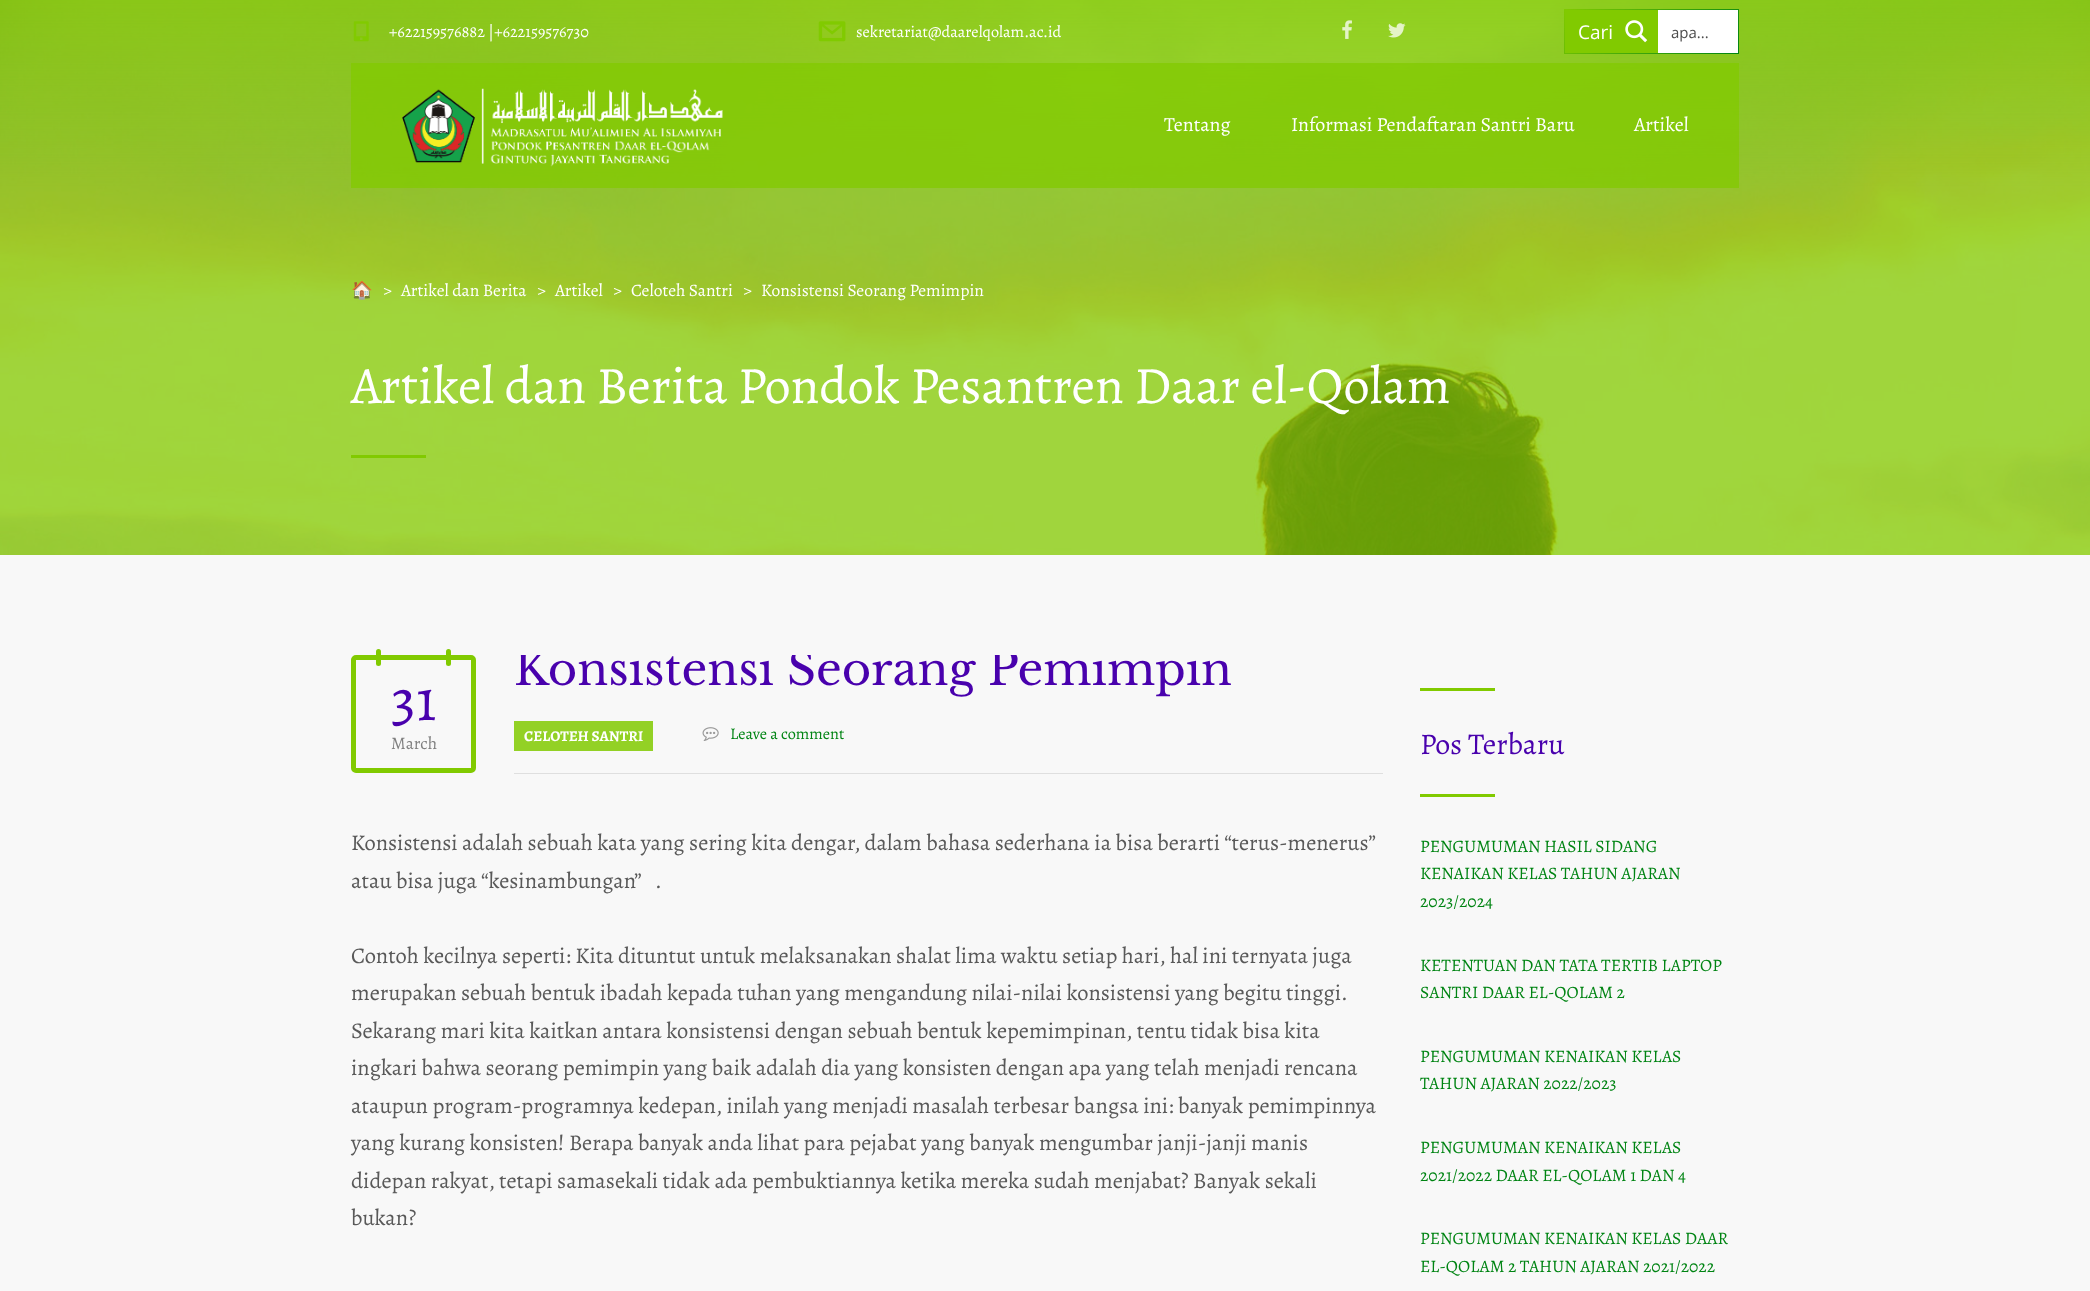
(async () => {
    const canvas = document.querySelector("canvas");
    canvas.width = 2090;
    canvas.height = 1291;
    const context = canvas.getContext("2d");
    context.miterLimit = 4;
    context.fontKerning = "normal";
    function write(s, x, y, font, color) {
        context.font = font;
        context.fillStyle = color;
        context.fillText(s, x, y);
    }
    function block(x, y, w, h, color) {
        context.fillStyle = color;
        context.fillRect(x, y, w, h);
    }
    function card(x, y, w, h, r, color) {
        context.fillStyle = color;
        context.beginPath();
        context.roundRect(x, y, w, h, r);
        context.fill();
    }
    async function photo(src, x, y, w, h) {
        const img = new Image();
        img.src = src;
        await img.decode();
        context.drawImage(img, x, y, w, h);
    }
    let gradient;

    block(0, 0, 2090, 1291, "rgb(248, 248, 248)");
    await photo("media/7.png", 0, 0, 2090, 555);
    await photo("media/1.png", 353, 21, 16, 21);
    write("+622159576882 |+622159576730", 389, 37, "16.25px Alegreya", "rgb(255, 255, 255)");
    await photo("media/2.png", 818, 21, 28, 21);
    write("sekretariat@daarelqolam.ac.id", 856, 37, "16.25px Alegreya", "rgb(255, 255, 255)");
    await photo("media/3.png", 1342, 20, 10, 19);
    await photo("media/4.png", 1388, 23, 18, 15);
    gradient = context.createLinearGradient(1589, -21, 1714, 84);
    gradient.addColorStop(0, "rgb(129, 202, 0)");
    gradient.addColorStop(1, "rgb(0, 132, 19)");
    context.fillStyle = gradient;
    context.fillRect(1564, 9, 175, 45);
    block(1658, 10, 80, 43, "rgb(255, 255, 255)");
    block(1565, 10, 93, 43, "rgb(129, 202, 0)");
    write("Cari", 1578, 39, "19px Open Sans", "rgb(255, 255, 255)");
    await photo("media/5.png", 1625, 20, 23, 23);
    write("apa...", 1671, 38, "15px Open Sans", "rgb(77, 77, 77)");
    block(351, 63, 1388, 125, "rgba(129, 202, 0, 0.75)");
    await photo("media/6.png", 402, 88, 321, 79);
    write("Tentang", 1164, 131, "20px Alegreya", "rgb(255, 255, 255)");
    write("Informasi Pendaftaran Santri Baru", 1291, 131, "20px Alegreya", "rgb(255, 255, 255)");
    write("Artikel", 1634, 131, "20px Alegreya", "rgb(255, 255, 255)");
    write("🏠", 351, 296, "17.5px Noto Color Emoji", "rgb(255, 255, 255)");
    write(">", 383, 296, "17.5px Alegreya", "rgb(255, 255, 255)");
    write("Artikel dan Berita", 401, 296, "17.5px Alegreya", "rgb(255, 255, 255)");
    write(">", 537, 296, "17.5px Alegreya", "rgb(255, 255, 255)");
    write("Artikel", 555, 296, "17.5px Alegreya", "rgb(255, 255, 255)");
    write(">", 613, 296, "17.5px Alegreya", "rgb(255, 255, 255)");
    write("Celoteh Santri", 631, 296, "17.5px Alegreya", "rgb(255, 255, 255)");
    write(">", 743, 296, "17.5px Alegreya", "rgb(255, 255, 255)");
    write("Konsistensi Seorang Pemimpin", 761, 296, "17.5px Alegreya", "rgb(255, 255, 255)");
    write("Artikel dan Berita Pondok Pesantren Daar el-Qolam", 351, 403, "52.5px Alegreya", "rgb(255, 255, 255)");
    block(351, 455, 75, 3, "rgb(129, 202, 0)");
    context.beginPath();
    context.roundRect(353.5, 657.5, 120, 113, 2.5);
    context.strokeStyle = "rgb(129, 202, 0)";
    context.lineWidth = 5;
    context.stroke();
    card(376, 649, 5, 17, 2.5, "rgb(129, 202, 0)");
    card(446, 649, 5, 17, 2.5, "rgb(129, 202, 0)");
    write("31", 391, 720, "60px Alegreya", "rgb(73, 1, 173)");
    write("March", 391, 749, "17.5px Alegreya", "rgb(128, 128, 128)");
    context.save();
    context.beginPath();
    context.rect(476, 655, 907, 119);
    context.clip();
    write("Konsistensi Seorang Pemimpin", 514, 685, "45px Libre Baskerville", "rgb(73, 1, 173)");
    context.restore();
    block(514, 773, 869, 1, "rgb(223, 223, 223)");
    block(514, 721, 139, 30, "rgb(147, 209, 37)");
    write("CELOTEH SANTRI", 524, 741, "bold 15px Alegreya", "rgb(255, 255, 255)");
    await photo("media/8.png", 702, 727, 17, 14);
    write("Leave a comment", 730, 739, "16.25px Alegreya", "rgb(0, 132, 19)");
    write("Konsistensi adalah sebuah kata yang sering kita dengar, dalam bahasa sederhana ia bisa berarti “terus-menerus”", 351, 850, "22.5px Alegreya", "rgb(89, 89, 89)");
    write("atau bisa juga “kesinambungan”", 351, 888, "22.5px Alegreya", "rgb(89, 89, 89)");
    write(".", 655, 888, "22.5px Alegreya", "rgb(89, 89, 89)");
    write("Contoh kecilnya seperti: Kita dituntut untuk melaksanakan shalat lima waktu setiap hari, hal ini ternyata juga", 351, 963, "22.5px Alegreya", "rgb(89, 89, 89)");
    write("merupakan sebuah bentuk ibadah kepada tuhan yang mengandung nilai-nilai konsistensi yang begitu tinggi.", 351, 1000, "22.5px Alegreya", "rgb(89, 89, 89)");
    write("Sekarang mari kita kaitkan antara konsistensi dengan sebuah bentuk kepemimpinan, tentu tidak bisa kita", 351, 1038, "22.5px Alegreya", "rgb(89, 89, 89)");
    write("ingkari bahwa seorang pemimpin yang baik adalah dia yang konsisten dengan apa yang telah menjadi rencana", 351, 1075, "22.5px Alegreya", "rgb(89, 89, 89)");
    write("ataupun program-programnya kedepan, inilah yang menjadi masalah terbesar bangsa ini: banyak pemimpinnya", 351, 1113, "22.5px Alegreya", "rgb(89, 89, 89)");
    write("yang kurang konsisten! Berapa banyak anda lihat para pejabat yang banyak mengumbar janji-janji manis", 351, 1150, "22.5px Alegreya", "rgb(89, 89, 89)");
    write("didepan rakyat, tetapi samasekali tidak ada pembuktiannya ketika mereka sudah menjabat? Banyak sekali", 351, 1188, "22.5px Alegreya", "rgb(89, 89, 89)");
    write("bukan?", 351, 1225, "22.5px Alegreya", "rgb(89, 89, 89)");
    block(1420, 688, 75, 3, "rgb(129, 202, 0)");
    write("Pos Terbaru", 1420, 754, "30px Alegreya", "rgb(73, 1, 173)");
    block(1420, 794, 75, 3, "rgb(129, 202, 0)");
    write("PENGUMUMAN HASIL SIDANG", 1420, 852, "17.5px Alegreya", "rgb(0, 132, 19)");
    write("KENAIKAN KELAS TAHUN AJARAN", 1420, 879, "17.5px Alegreya", "rgb(0, 132, 19)");
    write("2023/2024", 1420, 907, "17.5px Alegreya", "rgb(0, 132, 19)");
    write("KETENTUAN DAN TATA TERTIB LAPTOP", 1420, 971, "17.5px Alegreya", "rgb(0, 132, 19)");
    write("SANTRI DAAR EL-QOLAM 2", 1420, 998, "17.5px Alegreya", "rgb(0, 132, 19)");
    write("PENGUMUMAN KENAIKAN KELAS", 1420, 1062, "17.5px Alegreya", "rgb(0, 132, 19)");
    write("TAHUN AJARAN 2022/2023", 1420, 1089, "17.5px Alegreya", "rgb(0, 132, 19)");
    write("PENGUMUMAN KENAIKAN KELAS", 1420, 1153, "17.5px Alegreya", "rgb(0, 132, 19)");
    write("2021/2022 DAAR EL-QOLAM 1 DAN 4", 1420, 1181, "17.5px Alegreya", "rgb(0, 132, 19)");
    write("PENGUMUMAN KENAIKAN KELAS DAAR", 1420, 1244, "17.5px Alegreya", "rgb(0, 132, 19)");
    write("EL-QOLAM 2 TAHUN AJARAN 2021/2022", 1420, 1272, "17.5px Alegreya", "rgb(0, 132, 19)");
})();
